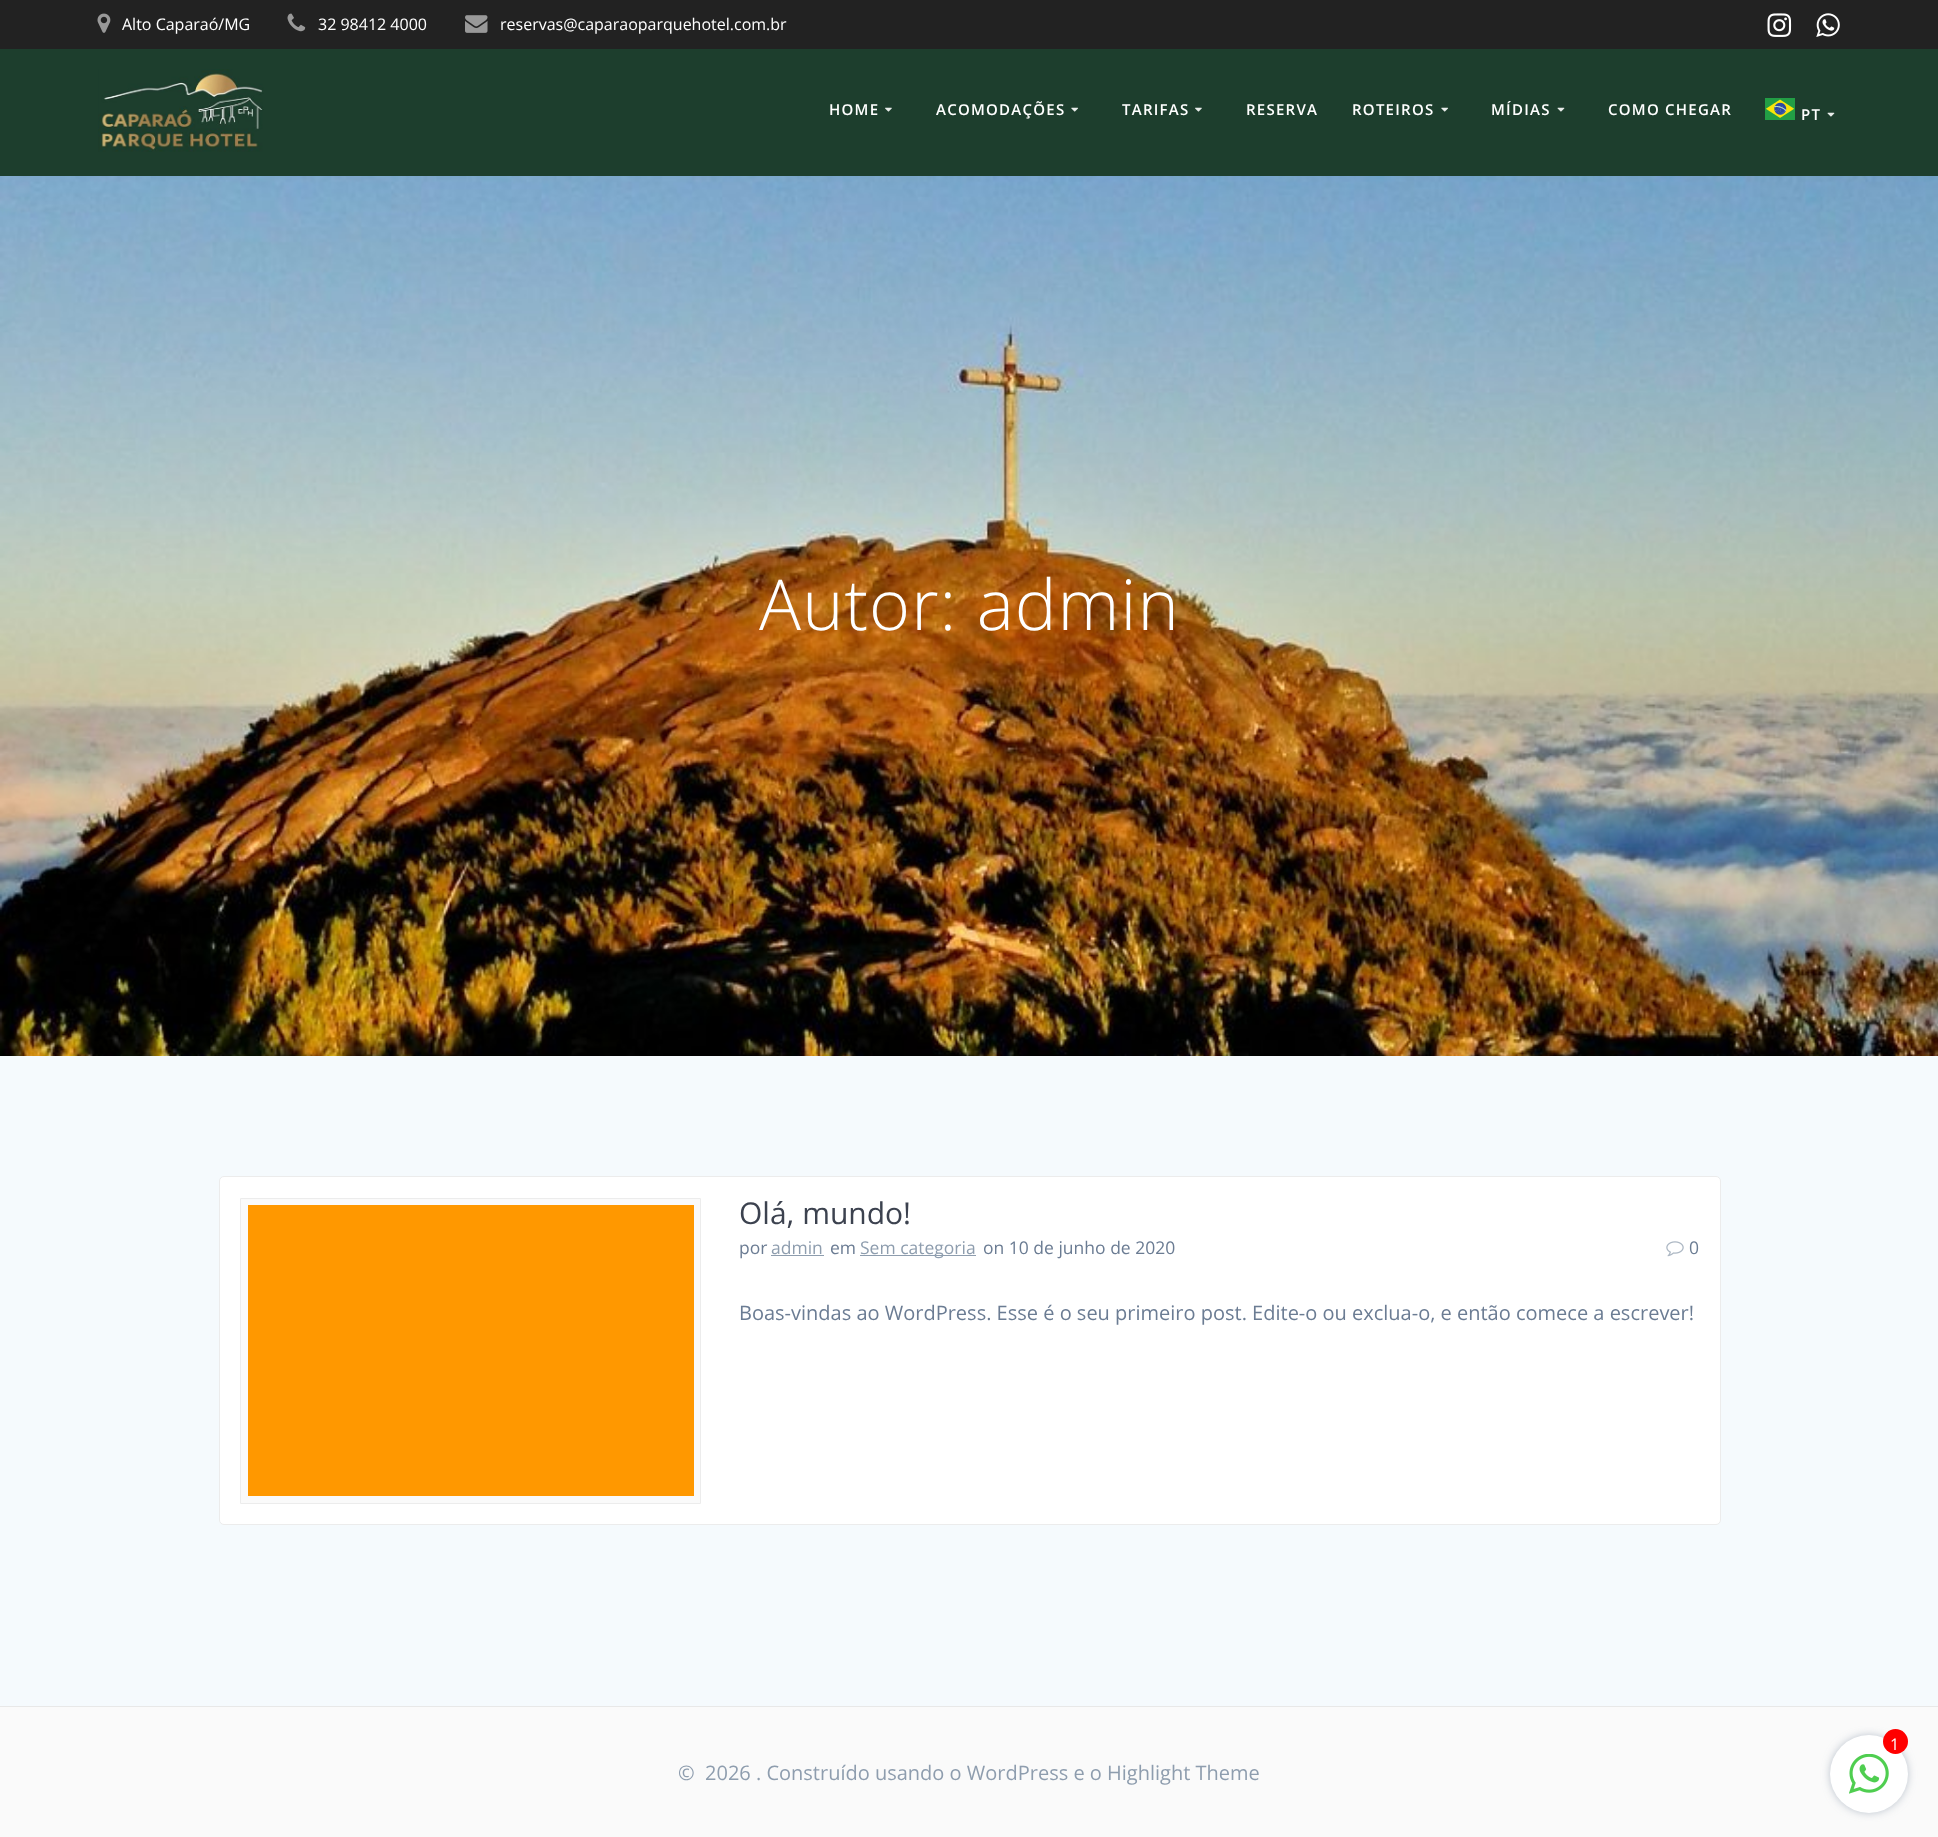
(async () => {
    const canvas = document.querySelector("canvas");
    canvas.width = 1938;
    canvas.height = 1837;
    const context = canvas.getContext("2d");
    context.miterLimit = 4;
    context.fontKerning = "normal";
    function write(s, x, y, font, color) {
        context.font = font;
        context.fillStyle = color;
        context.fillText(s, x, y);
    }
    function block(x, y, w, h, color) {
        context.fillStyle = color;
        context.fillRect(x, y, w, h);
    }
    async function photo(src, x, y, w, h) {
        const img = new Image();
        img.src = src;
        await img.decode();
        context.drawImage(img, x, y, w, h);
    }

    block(0, 0, 1938, 1837, "rgb(250, 250, 250)");
    block(0, 0, 1938, 49, "rgb(34, 34, 34)");
    await photo("media/1.png", 97, 13, 14, 20);
    write("Alto Caparaó/MG", 122, 30, "16px Open Sans", "rgb(255, 255, 255)");
    await photo("media/2.png", 287, 13, 19, 19);
    write("32 98412 4000", 318, 30, "16px Open Sans", "rgb(255, 255, 255)");
    await photo("media/3.png", 465, 15, 23, 18);
    write("reservas@caparaoparquehotel.com.br", 500, 30, "16px Open Sans", "rgb(255, 255, 255)");
    await photo("media/4.png", 1767, 13, 25, 24);
    await photo("media/5.png", 1816, 13, 24, 24);
    block(0, 49, 1938, 127, "rgb(29, 62, 45)");
    await photo("media/6.png", 98, 69, 166, 83);
    context.letterSpacing = "1.25px";
    write("HOME", 829, 115, "600 15px Open Sans", "rgb(255, 255, 255)");
    await photo("media/7.png", 885, 107, 7, 5);
    write("ACOMODAÇÕES", 936, 115, "600 15px Open Sans", "rgb(255, 255, 255)");
    await photo("media/8.png", 1071, 107, 8, 5);
    write("TARIFAS", 1122, 115, "600 15px Open Sans", "rgb(255, 255, 255)");
    await photo("media/7.png", 1195, 107, 7, 5);
    write("RESERVA", 1246, 115, "600 15px Open Sans", "rgb(255, 255, 255)");
    write("ROTEIROS", 1352, 115, "600 15px Open Sans", "rgb(255, 255, 255)");
    await photo("media/8.png", 1441, 107, 8, 5);
    write("MÍDIAS", 1491, 115, "600 15px Open Sans", "rgb(255, 255, 255)");
    await photo("media/9.png", 1557, 107, 8, 5);
    write("COMO CHEGAR", 1608, 115, "600 15px Open Sans", "rgb(255, 255, 255)");
    await photo("media/10.png", 1765, 98, 30, 22);
    write("PT", 1801, 120, "600 15px Open Sans", "rgb(255, 255, 255)");
    await photo("media/9.png", 1827, 112, 8, 5);
    await photo("media/11.png", 0, 176, 1938, 880);
    context.letterSpacing = "1.1px";
    write("Autor: admin", 759, 630, "300 70px Open Sans", "rgb(255, 255, 255)");
    block(0, 1056, 1938, 650, "rgb(245, 250, 253)");
    context.fillStyle = "rgb(255, 255, 255)";
    context.beginPath();
    context.roundRect(219.5, 1176.5, 1501, 348, 4.5);
    context.fill();
    context.strokeStyle = "rgb(236, 236, 236)";
    context.stroke();
    context.fillStyle = "rgb(250, 250, 250)";
    context.beginPath();
    context.rect(240.5, 1198.5, 460, 305);
    context.fill();
    context.stroke();
    block(248, 1205, 446, 291, "rgb(255, 152, 0)");
    context.letterSpacing = "0px";
    write("Olá, mundo!", 739, 1224, "30px Open Sans", "rgb(60, 66, 79)");
    write("por", 739, 1254, "17.5px Open Sans", "rgb(107, 124, 147)");
    write("admin", 771, 1254, "17.5px Open Sans", "rgb(142, 157, 174)");
    block(771, 1255, 53, 1, "rgb(142, 157, 174)");
    write("em", 830, 1254, "17.5px Open Sans", "rgb(107, 124, 147)");
    block(860, 1255, 116, 1, "rgb(142, 157, 174)");
    write("Sem categoria", 860, 1254, "17.5px Open Sans", "rgb(142, 157, 174)");
    write("on 10 de junho de 2020", 983, 1254, "17.5px Open Sans", "rgb(107, 124, 147)");
    await photo("media/12.png", 1666, 1241, 18, 16);
    write("0", 1689, 1254, "17.5px Open Sans", "rgb(107, 124, 147)");
    write("Boas-vindas ao WordPress. Esse é o seu primeiro post. Edite-o ou exclua-o, e então comece a escrever!", 739, 1320, "20px Open Sans", "rgb(107, 124, 147)");
    block(0, 1706, 1938, 1, "rgb(232, 232, 232)");
    write("©  2026 . Construído usando o WordPress e o Highlight Theme", 678, 1780, "20px Open Sans", "rgb(142, 157, 174)");
    context.fillStyle = "rgb(107, 124, 147)";
    context.filter = "blur(6px)";
    context.beginPath();
    context.roundRect(1834, 1739, 70, 70, 35);
    context.fill();
    context.filter = "none";
    context.fillStyle = "rgb(255, 255, 255)";
    context.beginPath();
    context.arc(1869, 1774, 39, 0, Math.PI * 2);
    context.fill();
    context.fillStyle = "rgb(255, 0, 0)";
    context.beginPath();
    context.arc(1895.5, 1741.5, 12.5, 0, Math.PI * 2);
    context.fill();
    write("1", 1890, 1750, "16px Open Sans", "rgb(255, 255, 255)");
    await photo("media/13.png", 1849, 1754, 40, 40);
})();
